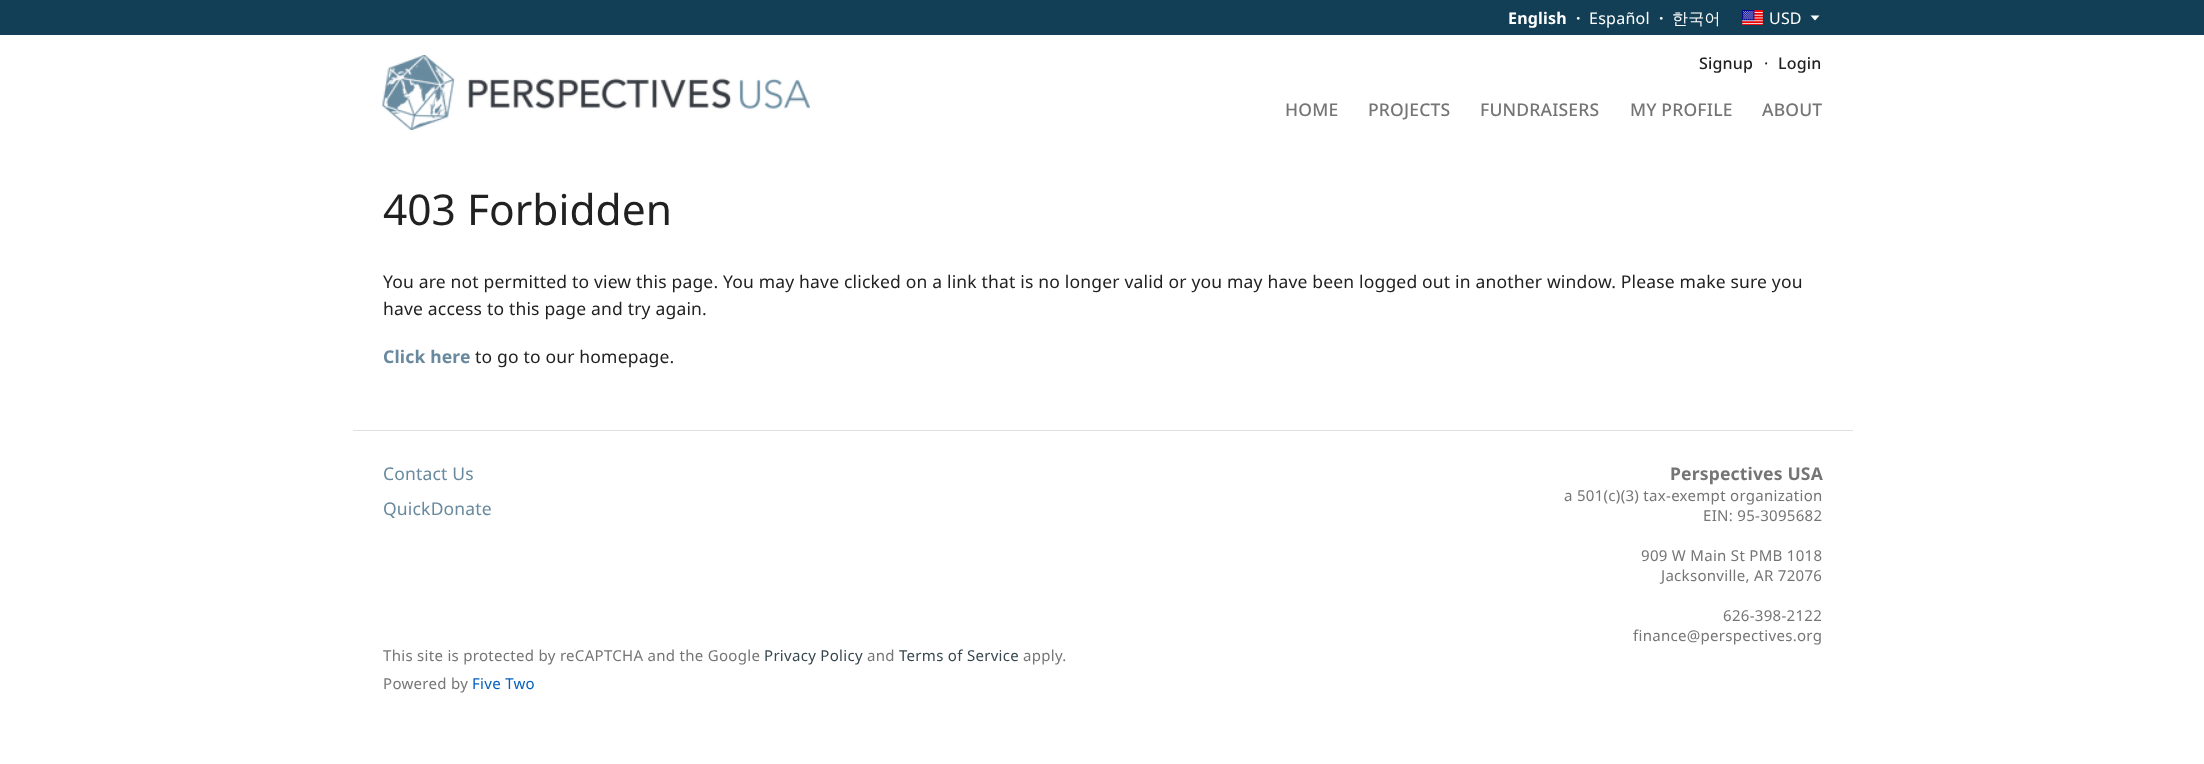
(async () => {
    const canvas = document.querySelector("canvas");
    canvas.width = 2204;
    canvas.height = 764;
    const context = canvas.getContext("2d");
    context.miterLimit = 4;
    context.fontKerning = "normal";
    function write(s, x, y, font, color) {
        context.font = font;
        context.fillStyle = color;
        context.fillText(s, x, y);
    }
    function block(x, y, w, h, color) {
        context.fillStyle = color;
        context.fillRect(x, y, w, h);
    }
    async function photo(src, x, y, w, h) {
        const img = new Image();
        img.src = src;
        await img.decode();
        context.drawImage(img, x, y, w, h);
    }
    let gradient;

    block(0, 0, 2204, 764, "rgb(255, 255, 255)");
    block(0, 0, 2204, 35, "rgb(18, 63, 85)");
    await photo("media/1.png", 382, 55, 428, 75);
    context.letterSpacing = "0.18px";
    write("English", 1508, 24, "bold 16px Noto Sans", "rgb(255, 255, 255)");
    write("·", 1576, 24, "bold 16px Noto Sans", "rgb(255, 255, 255)");
    context.letterSpacing = "0.25px";
    write("Español", 1589, 24, "16px Noto Sans", "rgb(255, 255, 255)");
    context.letterSpacing = "0.18px";
    write("·", 1659, 24, "bold 16px Noto Sans", "rgb(255, 255, 255)");
    context.letterSpacing = "0.25px";
    write("한국어", 1672, 24, "500 16px WenQuanYi Zen Hei", "rgb(255, 255, 255)");
    await photo("media/2.png", 1742, 10, 21, 15);
    gradient = context.createLinearGradient(1753, 10, 1753, 25);
    gradient.addColorStop(0, "rgba(0, 0, 0, 0.02)");
    gradient.addColorStop(1, "rgba(0, 0, 0, 0.07)");
    context.fillStyle = gradient;
    context.fillRect(1741, 10, 23, 15);
    context.letterSpacing = "0.18px";
    write("USD", 1769, 24, "16px Noto Sans", "rgb(255, 255, 255)");
    context.beginPath();
    context.moveTo(1810.5, 15.5);
    context.lineTo(1819.5, 15.5);
    context.lineTo(1815, 20.5);
    context.closePath();
    context.fill();
    write("Signup", 1699, 69, "500 16px Noto Sans", "rgb(33, 33, 33)");
    write("·", 1764, 69, "16px Noto Sans", "rgb(33, 33, 33)");
    write("Login", 1778, 69, "500 16px Noto Sans", "rgb(33, 33, 33)");
    write("HOME", 1285, 116, "500 17.5px Noto Sans", "rgb(117, 117, 117)");
    write("PROJECTS", 1368, 116, "500 17.5px Noto Sans", "rgb(117, 117, 117)");
    write("FUNDRAISERS", 1480, 116, "500 17.5px Noto Sans", "rgb(117, 117, 117)");
    write("MY PROFILE", 1630, 116, "500 17.5px Noto Sans", "rgb(117, 117, 117)");
    write("ABOUT", 1762, 116, "500 17.5px Noto Sans", "rgb(117, 117, 117)");
    context.letterSpacing = "0px";
    write("403 Forbidden", 383, 225, "42.5px Noto Sans", "rgb(33, 33, 33)");
    context.letterSpacing = "0.18px";
    write("You are not permitted to view this page. You may have clicked on a link that is no longer valid or you may have been logged out in another window. Please make sure you", 383, 288, "17.5px Noto Sans", "rgb(33, 33, 33)");
    write("have access to this page and try again.", 383, 315, "17.5px Noto Sans", "rgb(33, 33, 33)");
    write("Click here", 383, 363, "bold 17.5px Noto Sans", "rgb(104, 137, 158)");
    write("to go to our homepage.", 475, 363, "17.5px Noto Sans", "rgb(33, 33, 33)");
    block(353, 430, 1500, 1, "rgb(224, 224, 224)");
    write("Contact Us", 383, 480, "17.5px Noto Sans", "rgb(104, 137, 158)");
    write("QuickDonate", 383, 515, "17.5px Noto Sans", "rgb(104, 137, 158)");
    write("Perspectives USA", 1670, 480, "bold 17.5px Noto Sans", "rgb(117, 117, 117)");
    context.letterSpacing = "0.3px";
    write("a 501(c)(3) tax-exempt organization", 1564, 501, "15px Noto Sans", "rgb(117, 117, 117)");
    write("EIN: 95-3095682", 1703, 521, "15px Noto Sans", "rgb(117, 117, 117)");
    write("909 W Main St PMB 1018", 1641, 561, "15px Noto Sans", "rgb(117, 117, 117)");
    write("Jacksonville, AR 72076", 1661, 581, "15px Noto Sans", "rgb(117, 117, 117)");
    write("626-398-2122", 1723, 621, "15px Noto Sans", "rgb(117, 117, 117)");
    write("finance@perspectives.org", 1633, 641, "15px Noto Sans", "rgb(117, 117, 117)");
    write("This site is protected by reCAPTCHA and the Google", 383, 661, "15px Noto Sans", "rgb(117, 117, 117)");
    write("Privacy Policy", 764, 661, "15px Noto Sans", "rgb(55, 71, 79)");
    write("and", 867, 661, "15px Noto Sans", "rgb(117, 117, 117)");
    write("Terms of Service", 899, 661, "15px Noto Sans", "rgb(55, 71, 79)");
    write("apply.", 1023, 661, "15px Noto Sans", "rgb(117, 117, 117)");
    write("Powered by", 383, 689, "15px Noto Sans", "rgb(117, 117, 117)");
    write("Five Two", 472, 689, "15px Noto Sans", "rgb(0, 95, 191)");
})();
